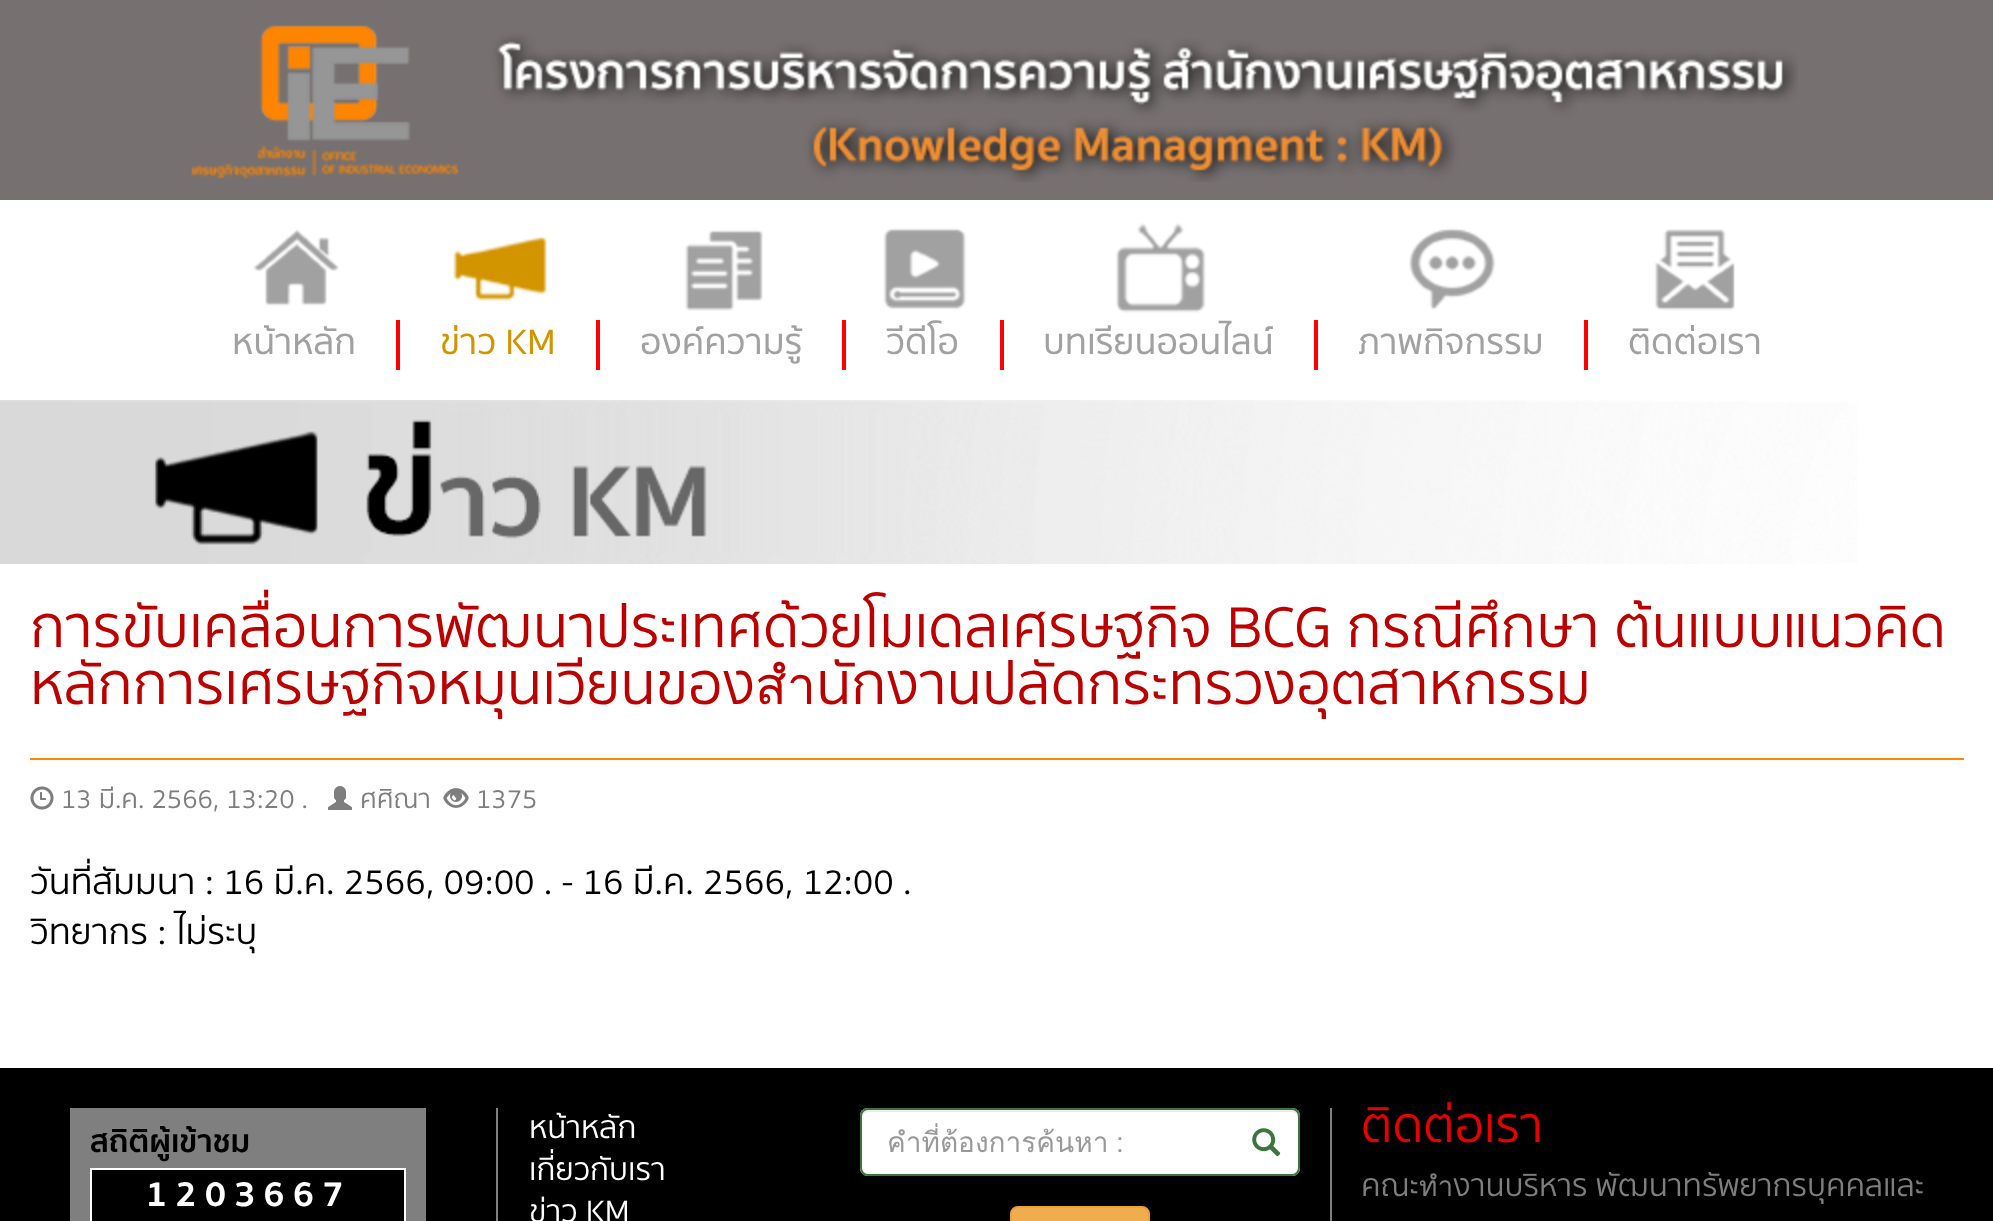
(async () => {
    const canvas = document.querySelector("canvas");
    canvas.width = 1993;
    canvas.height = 1221;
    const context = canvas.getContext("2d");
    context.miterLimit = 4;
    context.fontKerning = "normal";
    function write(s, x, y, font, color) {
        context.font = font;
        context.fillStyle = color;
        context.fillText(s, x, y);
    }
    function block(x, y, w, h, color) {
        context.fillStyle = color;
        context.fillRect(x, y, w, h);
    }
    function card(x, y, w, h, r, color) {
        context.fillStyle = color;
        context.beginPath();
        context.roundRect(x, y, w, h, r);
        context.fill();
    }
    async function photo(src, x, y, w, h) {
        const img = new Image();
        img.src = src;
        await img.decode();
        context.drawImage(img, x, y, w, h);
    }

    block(0, 0, 1993, 1221, "rgb(255, 255, 255)");
    block(0, 0, 1993, 200, "rgb(118, 112, 112)");
    await photo("media/1.png", 191, 25, 1607, 157);
    block(253, 229, 86, 78, "rgb(162, 161, 161)");
    await photo("media/2.png", 246, 220, 100, 100);
    block(396, 320, 4, 50, "rgb(255, 0, 0)");
    write("หน้าหลัก", 232, 354, "500 32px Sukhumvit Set", "rgb(162, 161, 161)");
    block(452, 237, 95, 66, "rgb(210, 149, 0)");
    await photo("media/3.png", 450, 220, 100, 100);
    block(596, 320, 4, 50, "rgb(255, 0, 0)");
    write("ข่าว KM", 440, 354, "500 32px Sukhumvit Set", "rgb(210, 149, 0)");
    block(683, 229, 80, 82, "rgb(162, 161, 161)");
    await photo("media/4.png", 674, 220, 100, 100);
    block(842, 320, 4, 50, "rgb(255, 0, 0)");
    write("องค์ความรู้", 640, 354, "500 32px Sukhumvit Set", "rgb(162, 161, 161)");
    block(883, 227, 84, 84, "rgb(162, 161, 161)");
    await photo("media/5.png", 874, 220, 100, 100);
    block(1000, 320, 4, 50, "rgb(255, 0, 0)");
    write("วีดีโอ", 886, 354, "500 32px Sukhumvit Set", "rgb(162, 161, 161)");
    block(1115, 223, 92, 91, "rgb(162, 161, 161)");
    await photo("media/6.png", 1110, 220, 100, 100);
    block(1314, 320, 4, 50, "rgb(255, 0, 0)");
    write("บทเรียนออนไลน์", 1043, 354, "500 32px Sukhumvit Set", "rgb(162, 161, 161)");
    block(1409, 227, 88, 84, "rgb(162, 161, 161)");
    await photo("media/7.png", 1402, 220, 100, 100);
    block(1584, 320, 4, 50, "rgb(255, 0, 0)");
    write("ภาพกิจกรรม", 1358, 354, "500 32px Sukhumvit Set", "rgb(162, 161, 161)");
    block(1653, 229, 82, 82, "rgb(162, 161, 161)");
    await photo("media/8.png", 1644, 220, 100, 100);
    write("ติดต่อเรา", 1628, 354, "500 32px Sukhumvit Set", "rgb(162, 161, 161)");
    await photo("media/9.png", 0, 400, 1858, 164);
    context.wordSpacing = "-0.5px";
    write("การขับเคลื่อนการพัฒนาประเทศด้วยโมเดลเศรษฐกิจ BCG กรณีศึกษา ต้นแบบแนวคิด", 30, 647, "52px Sukhumvit Set", "rgb(188, 0, 0)");
    context.wordSpacing = "0px";
    write("หลักการเศรษฐกิจหมุนเวียนของสำนักงานปลัดกระทรวงอุตสาหกรรม", 30, 704, "52px Sukhumvit Set", "rgb(188, 0, 0)");
    block(30, 758, 1934, 2, "rgb(255, 132, 0)");
    await photo("media/10.png", 30, 786, 24, 24);
    write("13 มี.ค. 2566, 13:20 .", 61, 808, "24px Sukhumvit Set", "rgb(126, 126, 126)");
    await photo("media/11.png", 328, 786, 24, 24);
    write("ศศิณา", 360, 808, "24px Sukhumvit Set", "rgb(126, 126, 126)");
    await photo("media/12.png", 443, 788, 26, 20);
    write("1375", 476, 808, "24px Sukhumvit Set", "rgb(126, 126, 126)");
    write("วันที่สัมมนา : 16 มี.ค. 2566, 09:00 . - 16 มี.ค. 2566, 12:00 .", 30, 894, "32px Sukhumvit Set", "rgb(0, 0, 0)");
    write("วิทยากร : ไม่ระบุ", 30, 944, "32px Sukhumvit Set", "rgb(0, 0, 0)");
    block(0, 1068, 1993, 153, "rgb(0, 0, 0)");
    block(496, 1108, 2, 113, "rgb(127, 127, 127)");
    block(70, 1108, 356, 113, "rgb(127, 127, 127)");
    write("สถิติผู้เข้าชม", 90, 1152, "bold 28px Sukhumvit Set", "rgb(0, 0, 0)");
    context.beginPath();
    context.rect(91, 1169, 314, 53);
    context.fill();
    context.strokeStyle = "rgb(255, 255, 255)";
    context.lineWidth = 2;
    context.stroke();
    context.letterSpacing = "8px";
    write("1203667", 146, 1206, "bold 32px Sukhumvit Set", "rgb(255, 255, 255)");
    context.letterSpacing = "0px";
    write("หน้าหลัก", 529, 1138, "28px Sukhumvit Set", "rgb(255, 255, 255)");
    write("เกี่ยวกับเรา", 529, 1180, "28px Sukhumvit Set", "rgb(255, 255, 255)");
    write("ข่าว KM", 529, 1222, "28px Sukhumvit Set", "rgb(255, 255, 255)");
    card(860, 1108, 440, 68, 8, "rgb(255, 255, 255)");
    context.fillStyle = "rgb(236, 236, 236)";
    context.beginPath();
    context.moveTo(868, 1112);
    context.lineTo(1292, 1112);
    context.bezierCurveTo(1295, 1112, 1298, 1115, 1298, 1118);
    context.lineTo(1298, 1116);
    context.bezierCurveTo(1298, 1113, 1295, 1110, 1292, 1110);
    context.lineTo(868, 1110);
    context.bezierCurveTo(865, 1110, 862, 1113, 862, 1116);
    context.lineTo(862, 1118);
    context.bezierCurveTo(862, 1115, 865, 1112, 868, 1112);
    context.closePath();
    context.fill();
    context.beginPath();
    context.roundRect(861, 1109, 438, 66, 7);
    context.strokeStyle = "rgb(60, 118, 61)";
    context.stroke();
    context.save();
    context.beginPath();
    context.rect(886, 1120, 326, 44);
    context.clip();
    write("คำที่ต้องการค้นหา", 887, 1152, "28px Loma", "rgb(153, 153, 153)");
    context.restore();
    write(":", 1116, 1152, "28px Liberation Sans", "rgb(153, 153, 153)");
    await photo("media/13.png", 1252, 1128, 29, 29);
    context.fillStyle = "rgb(240, 173, 78)";
    context.beginPath();
    context.roundRect(1011, 1207, 138, 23, 7);
    context.fill();
    context.strokeStyle = "rgb(238, 162, 54)";
    context.stroke();
    block(1330, 1108, 2, 113, "rgb(127, 127, 127)");
    write("ติดต่อเรา", 1361, 1142, "44px Sukhumvit Set", "rgb(230, 0, 0)");
    write("คณะทำงานบริหาร พัฒนาทรัพยากรบุคคลและ", 1361, 1196, "28px Sukhumvit Set", "rgb(126, 126, 126)");
})();
